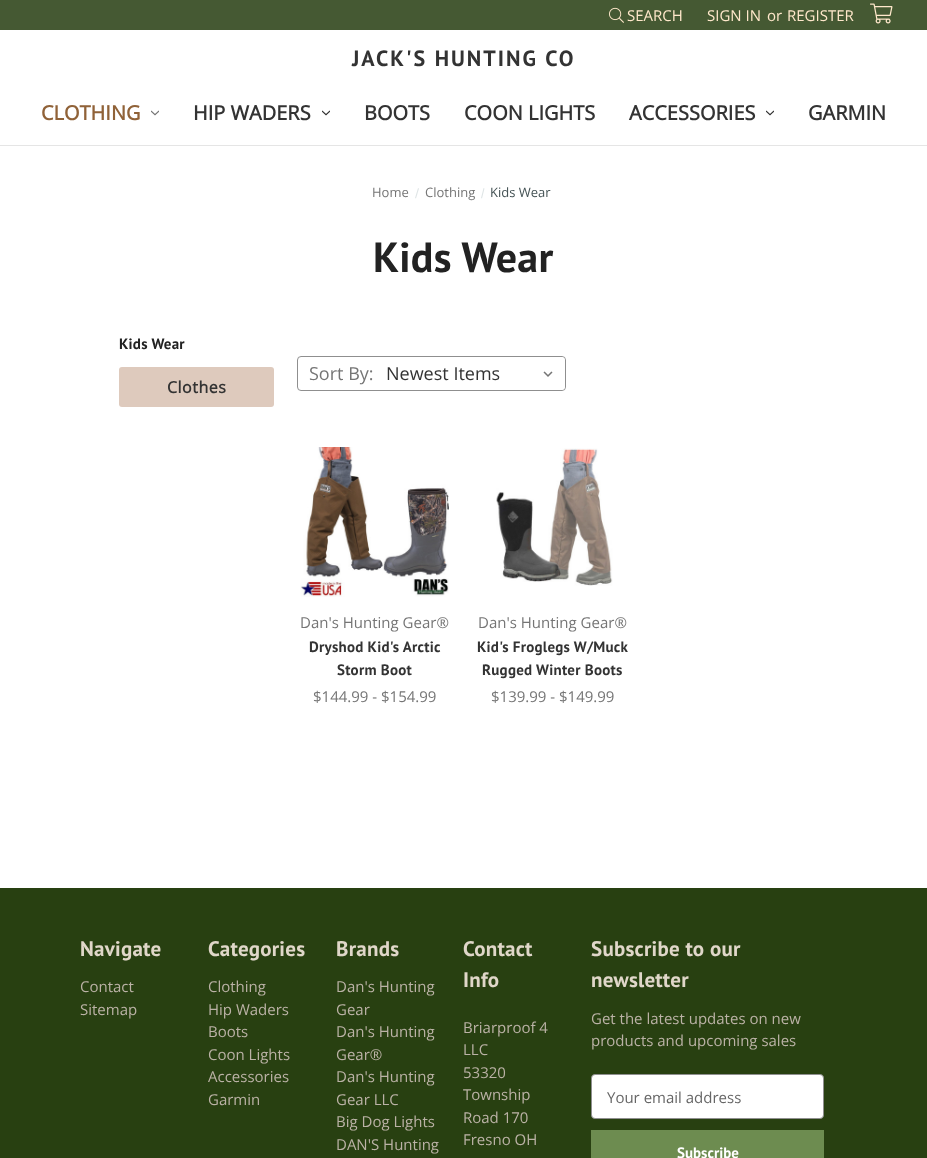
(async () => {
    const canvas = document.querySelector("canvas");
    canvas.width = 927;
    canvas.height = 1158;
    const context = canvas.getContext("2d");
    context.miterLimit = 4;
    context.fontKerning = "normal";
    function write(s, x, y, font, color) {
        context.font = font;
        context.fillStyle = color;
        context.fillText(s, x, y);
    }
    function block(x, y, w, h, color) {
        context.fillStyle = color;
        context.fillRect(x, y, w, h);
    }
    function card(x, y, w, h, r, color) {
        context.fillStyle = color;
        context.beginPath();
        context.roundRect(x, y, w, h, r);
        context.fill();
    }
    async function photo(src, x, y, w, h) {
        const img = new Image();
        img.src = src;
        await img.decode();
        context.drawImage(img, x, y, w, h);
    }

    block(0, 0, 927, 1158, "rgb(255, 255, 255)");
    block(0, 145, 927, 1, "rgb(229, 229, 229)");
    block(0, 0, 927, 30, "rgb(69, 89, 51)");
    await photo("media/1.png", 609, 7, 15, 16);
    write("SEARCH", 627, 21, "15px Open Sans", "rgb(255, 232, 203)");
    write("SIGN IN", 707, 21, "15px Open Sans", "rgb(255, 232, 203)");
    write("or", 767, 21, "15px Open Sans", "rgb(255, 232, 203)");
    write("REGISTER", 787, 21, "15px Open Sans", "rgb(255, 232, 203)");
    await photo("media/2.png", 870, 3, 23, 21);
    context.letterSpacing = "2px";
    write("JACK'S HUNTING CO", 352, 66, "bold 22px PT Sans", "rgb(51, 51, 51)");
    context.letterSpacing = "0px";
    write("CLOTHING", 41, 120, "bold 20px Open Sans", "rgb(144, 98, 56)");
    await photo("media/3.png", 151, 110, 8, 6);
    write("HIP WADERS", 193, 120, "bold 20px Open Sans", "rgb(51, 51, 51)");
    await photo("media/4.png", 322, 110, 8, 6);
    write("BOOTS", 364, 120, "bold 20px Open Sans", "rgb(51, 51, 51)");
    write("COON LIGHTS", 464, 120, "bold 20px Open Sans", "rgb(51, 51, 51)");
    write("ACCESSORIES", 629, 120, "bold 20px Open Sans", "rgb(51, 51, 51)");
    await photo("media/4.png", 766, 110, 8, 6);
    write("GARMIN", 808, 120, "bold 20px Open Sans", "rgb(51, 51, 51)");
    write("Home", 372, 197, "13px Open Sans", "rgb(117, 117, 117)");
    context.fillStyle = "rgb(223, 229, 230)";
    context.beginPath();
    context.moveTo(418, 188);
    context.lineTo(419, 188.5);
    context.lineTo(416, 198.5);
    context.lineTo(415, 198);
    context.closePath();
    context.fill();
    write("Clothing", 425, 197, "13px Open Sans", "rgb(117, 117, 117)");
    context.fillStyle = "rgb(223, 229, 230)";
    context.beginPath();
    context.moveTo(483.5, 188);
    context.lineTo(484.5, 188.5);
    context.lineTo(482, 198.5);
    context.lineTo(481, 198);
    context.closePath();
    context.fill();
    write("Kids Wear", 490, 197, "13px Open Sans", "rgb(69, 83, 85)");
    context.letterSpacing = "0.25px";
    write("Kids Wear", 373, 272, "bold 42px PT Sans", "rgb(34, 34, 34)");
    write("Kids Wear", 119, 349, "bold 15px PT Sans", "rgb(34, 34, 34)");
    card(119, 367, 155, 40, 3, "rgb(222, 202, 189)");
    context.letterSpacing = "0.5px";
    write("Clothes", 167, 393, "bold 16px Open Sans", "rgb(51, 51, 51)");
    context.beginPath();
    context.roundRect(297.5, 356.5, 268, 34, 3.5);
    context.strokeStyle = "rgb(143, 143, 143)";
    context.stroke();
    context.letterSpacing = "0px";
    write("Sort By:", 309, 380, "18px Open Sans", "rgb(117, 117, 117)");
    card(383, 357, 182, 33, 4, "rgb(255, 255, 255)");
    await photo("media/5.png", 543, 371, 10, 6);
    write("Newest Items", 386, 380, "18px Open Sans", "rgb(51, 51, 51)");
    await photo("media/6.png", 300, 447, 149, 150);
    write("Dan's Hunting Gear®", 300, 628, "15px Open Sans", "rgb(117, 117, 117)");
    context.letterSpacing = "0.25px";
    write("Dryshod Kid's Arctic", 309, 652, "bold 15px PT Sans", "rgb(51, 51, 51)");
    write("Storm Boot", 337, 675, "bold 15px PT Sans", "rgb(51, 51, 51)");
    context.letterSpacing = "0px";
    write("$144.99 - $154.99", 313, 702, "15px Open Sans", "rgb(117, 117, 117)");
    await photo("media/7.png", 496, 448, 117, 138);
    write("Dan's Hunting Gear®", 478, 628, "15px Open Sans", "rgb(117, 117, 117)");
    context.letterSpacing = "0.25px";
    write("Kid's Froglegs W/Muck", 477, 652, "bold 15px PT Sans", "rgb(51, 51, 51)");
    write("Rugged Winter Boots", 482, 675, "bold 15px PT Sans", "rgb(51, 51, 51)");
    context.letterSpacing = "0px";
    write("$139.99 - $149.99", 491, 702, "15px Open Sans", "rgb(117, 117, 117)");
    block(0, 888, 927, 270, "rgb(40, 64, 17)");
    context.letterSpacing = "0.25px";
    write("Navigate", 80, 956, "bold 21px PT Sans", "rgb(224, 215, 201)");
    context.letterSpacing = "0px";
    write("Contact", 80, 992, "15px Open Sans", "rgb(187, 178, 166)");
    write("Sitemap", 80, 1015, "15px Open Sans", "rgb(187, 178, 166)");
    context.letterSpacing = "0.25px";
    write("Categories", 208, 956, "bold 21px PT Sans", "rgb(224, 215, 201)");
    context.letterSpacing = "0px";
    write("Clothing", 208, 992, "15px Open Sans", "rgb(187, 178, 166)");
    write("Hip Waders", 208, 1015, "15px Open Sans", "rgb(187, 178, 166)");
    write("Boots", 208, 1037, "15px Open Sans", "rgb(187, 178, 166)");
    write("Coon Lights", 208, 1060, "15px Open Sans", "rgb(187, 178, 166)");
    write("Accessories", 208, 1082, "15px Open Sans", "rgb(187, 178, 166)");
    write("Garmin", 208, 1105, "15px Open Sans", "rgb(187, 178, 166)");
    context.letterSpacing = "0.25px";
    write("Brands", 336, 956, "bold 21px PT Sans", "rgb(224, 215, 201)");
    context.letterSpacing = "0px";
    write("Dan's Hunting", 336, 992, "15px Open Sans", "rgb(187, 178, 166)");
    write("Gear", 336, 1015, "15px Open Sans", "rgb(187, 178, 166)");
    write("Dan's Hunting", 336, 1037, "15px Open Sans", "rgb(187, 178, 166)");
    write("Gear®", 336, 1060, "15px Open Sans", "rgb(187, 178, 166)");
    write("Dan's Hunting", 336, 1082, "15px Open Sans", "rgb(187, 178, 166)");
    write("Gear LLC", 336, 1105, "15px Open Sans", "rgb(187, 178, 166)");
    write("Big Dog Lights", 336, 1127, "15px Open Sans", "rgb(187, 178, 166)");
    write("DAN'S Hunting", 336, 1150, "15px Open Sans", "rgb(187, 178, 166)");
    context.letterSpacing = "0.25px";
    write("Contact", 463, 956, "bold 21px PT Sans", "rgb(224, 215, 201)");
    write("Info", 463, 987, "bold 21px PT Sans", "rgb(224, 215, 201)");
    context.letterSpacing = "0px";
    write("Briarproof 4", 463, 1033, "15px Open Sans", "rgb(187, 178, 166)");
    write("LLC", 463, 1055, "15px Open Sans", "rgb(187, 178, 166)");
    write("53320", 463, 1078, "15px Open Sans", "rgb(187, 178, 166)");
    write("Township", 463, 1100, "15px Open Sans", "rgb(187, 178, 166)");
    write("Road 170", 463, 1123, "15px Open Sans", "rgb(187, 178, 166)");
    write("Fresno OH", 463, 1145, "15px Open Sans", "rgb(187, 178, 166)");
    context.letterSpacing = "0.25px";
    write("Subscribe to our", 591, 956, "bold 21px PT Sans", "rgb(224, 215, 201)");
    write("newsletter", 591, 987, "bold 21px PT Sans", "rgb(224, 215, 201)");
    context.letterSpacing = "0px";
    write("Get the latest updates on new", 591, 1024, "15px Open Sans", "rgb(187, 178, 166)");
    write("products and upcoming sales", 591, 1046, "15px Open Sans", "rgb(187, 178, 166)");
    context.fillStyle = "rgb(255, 255, 255)";
    context.beginPath();
    context.roundRect(591.5, 1074.5, 232, 44, 3.5);
    context.fill();
    context.stroke();
    write("Your email address", 607, 1103, "15px Open Sans", "rgb(102, 102, 102)");
    block(591, 1130, 233, 28, "rgb(109, 140, 80)");
    write("Subscribe", 677, 1158, "bold 15px PT Sans", "rgb(255, 255, 255)");
})();
